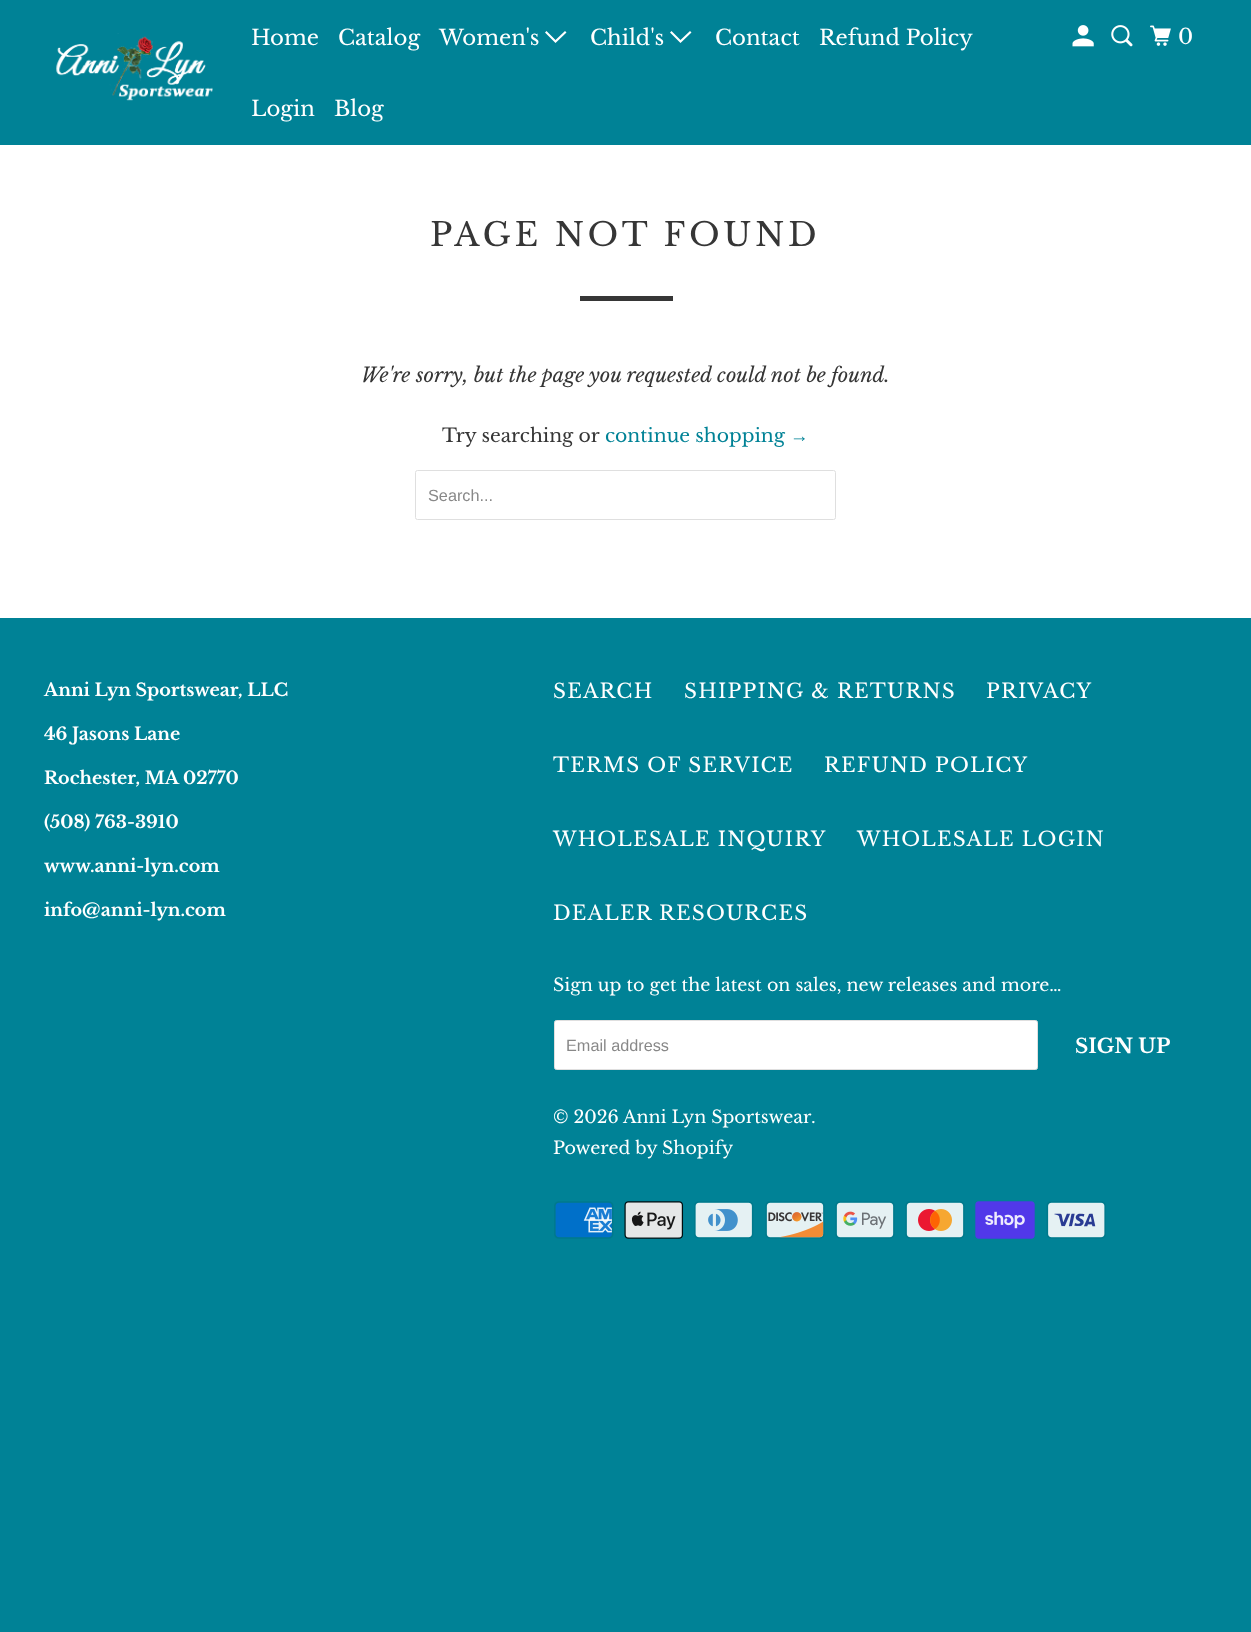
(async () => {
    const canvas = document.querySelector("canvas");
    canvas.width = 1251;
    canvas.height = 1632;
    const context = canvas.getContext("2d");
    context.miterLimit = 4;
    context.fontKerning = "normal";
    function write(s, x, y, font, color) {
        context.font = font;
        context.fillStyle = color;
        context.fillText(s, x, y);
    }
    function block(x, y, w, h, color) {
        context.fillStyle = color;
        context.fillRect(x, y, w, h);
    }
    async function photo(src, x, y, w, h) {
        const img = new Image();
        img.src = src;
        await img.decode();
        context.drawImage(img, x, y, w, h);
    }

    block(0, 0, 1251, 1632, "rgb(0, 130, 150)");
    block(0, 145, 1251, 473, "rgb(255, 255, 255)");
    await photo("media/1.png", 56, 33, 157, 68);
    write("Home", 251, 45, "21.25px Libre Baskerville", "rgb(255, 255, 255)");
    write("Catalog", 338, 45, "21.25px Libre Baskerville", "rgb(255, 255, 255)");
    write("Women's", 439, 45, "21.25px Libre Baskerville", "rgb(255, 255, 255)");
    context.beginPath();
    context.moveTo(550.5, 38);
    context.lineTo(545, 32.5);
    context.lineTo(546.5, 31);
    context.lineTo(555.5, 40);
    context.lineTo(565, 31);
    context.lineTo(566.5, 32.5);
    context.lineTo(555.5, 43);
    context.closePath();
    context.fill();
    write("Child's", 590, 45, "21.25px Libre Baskerville", "rgb(255, 255, 255)");
    context.beginPath();
    context.moveTo(675.5, 38);
    context.lineTo(670, 32.5);
    context.lineTo(671.5, 31);
    context.lineTo(680.5, 40);
    context.lineTo(690, 31);
    context.lineTo(691.5, 32.5);
    context.lineTo(680.5, 43);
    context.closePath();
    context.fill();
    write("Contact", 715, 45, "21.25px Libre Baskerville", "rgb(255, 255, 255)");
    write("Refund Policy", 819, 45, "21.25px Libre Baskerville", "rgb(255, 255, 255)");
    write("Login", 251, 116, "21.25px Libre Baskerville", "rgb(255, 255, 255)");
    write("Blog", 334, 116, "21.25px Libre Baskerville", "rgb(255, 255, 255)");
    await photo("media/2.png", 1072, 25, 22, 22);
    await photo("media/3.png", 1111, 25, 22, 22);
    await photo("media/4.png", 1150, 25, 21, 21);
    write("0", 1178, 44, "21.25px Libre Baskerville", "rgb(255, 255, 255)");
    context.letterSpacing = "3.75px";
    write("PAGE NOT FOUND", 430, 246, "32.5px Libre Baskerville", "rgb(54, 54, 54)");
    block(580, 296, 93, 5, "rgb(54, 54, 54)");
    context.letterSpacing = "0px";
    write("We're sorry, but the page you requested could not be found.", 361, 382, "italic 20px Libre Baskerville", "rgb(54, 54, 54)");
    write("Try searching or", 442, 442, "18.75px Libre Baskerville", "rgb(54, 54, 54)");
    write("continue shopping", 605, 442, "18.75px Libre Baskerville", "rgb(0, 130, 150)");
    write("→", 790, 442, "18.75px Liberation Serif", "rgb(0, 130, 150)");
    context.beginPath();
    context.roundRect(415.5, 470.5, 420, 49, 2);
    context.strokeStyle = "rgb(223, 223, 223)";
    context.stroke();
    write("Search...", 428, 501, "16.25px Liberation Sans", "rgb(136, 136, 136)");
    write("Anni Lyn Sportswear, LLC", 44, 696, "bold 17.5px Libre Baskerville", "rgb(255, 255, 255)");
    write("46 Jasons Lane", 44, 740, "bold 17.5px Libre Baskerville", "rgb(255, 255, 255)");
    write("Rochester, MA 02770", 44, 784, "bold 17.5px Libre Baskerville", "rgb(255, 255, 255)");
    write("(508) 763-3910", 44, 828, "bold 17.5px Libre Baskerville", "rgb(255, 255, 255)");
    write("www.anni-lyn.com", 44, 872, "bold 17.5px Libre Baskerville", "rgb(255, 255, 255)");
    write("info@anni-lyn.com", 44, 916, "bold 17.5px Libre Baskerville", "rgb(255, 255, 255)");
    context.letterSpacing = "1.25px";
    write("SEARCH", 553, 698, "20px Libre Baskerville", "rgb(255, 255, 255)");
    write("SHIPPING & RETURNS", 684, 698, "20px Libre Baskerville", "rgb(255, 255, 255)");
    write("PRIVACY", 986, 698, "20px Libre Baskerville", "rgb(255, 255, 255)");
    write("TERMS OF SERVICE", 553, 772, "20px Libre Baskerville", "rgb(255, 255, 255)");
    write("REFUND POLICY", 824, 772, "20px Libre Baskerville", "rgb(255, 255, 255)");
    write("WHOLESALE INQUIRY", 553, 846, "20px Libre Baskerville", "rgb(255, 255, 255)");
    write("WHOLESALE LOGIN", 857, 846, "20px Libre Baskerville", "rgb(255, 255, 255)");
    write("DEALER RESOURCES", 553, 920, "20px Libre Baskerville", "rgb(255, 255, 255)");
    context.letterSpacing = "0px";
    write("Sign up to get the latest on sales, new releases and more…", 553, 991, "17.5px Libre Baskerville", "rgb(255, 255, 255)");
    context.beginPath();
    context.roundRect(554.5, 1020.5, 483, 49, 2);
    context.fill();
    context.stroke();
    write("Email address", 566, 1051, "16.25px Liberation Sans", "rgb(136, 136, 136)");
    write("SIGN UP", 1075, 1053, "bold 20px Libre Baskerville", "rgb(255, 255, 255)");
    write("© 2026", 553, 1123, "17.5px Libre Baskerville", "rgb(255, 255, 255)");
    write("Anni Lyn Sportswear", 623, 1123, "17.5px Libre Baskerville", "rgb(255, 255, 255)");
    write(".", 811, 1123, "17.5px Libre Baskerville", "rgb(255, 255, 255)");
    write("Powered by Shopify", 553, 1154, "17.5px Libre Baskerville", "rgb(255, 255, 255)");
    await photo("media/5.png", 554, 1201, 60, 38);
    await photo("media/6.png", 624, 1201, 60, 38);
    await photo("media/7.png", 694, 1201, 60, 38);
    await photo("media/8.png", 765, 1201, 60, 38);
    await photo("media/9.png", 835, 1201, 60, 38);
    await photo("media/10.png", 905, 1201, 60, 38);
    await photo("media/11.png", 975, 1201, 60, 38);
    await photo("media/12.png", 1046, 1201, 60, 38);
})();
